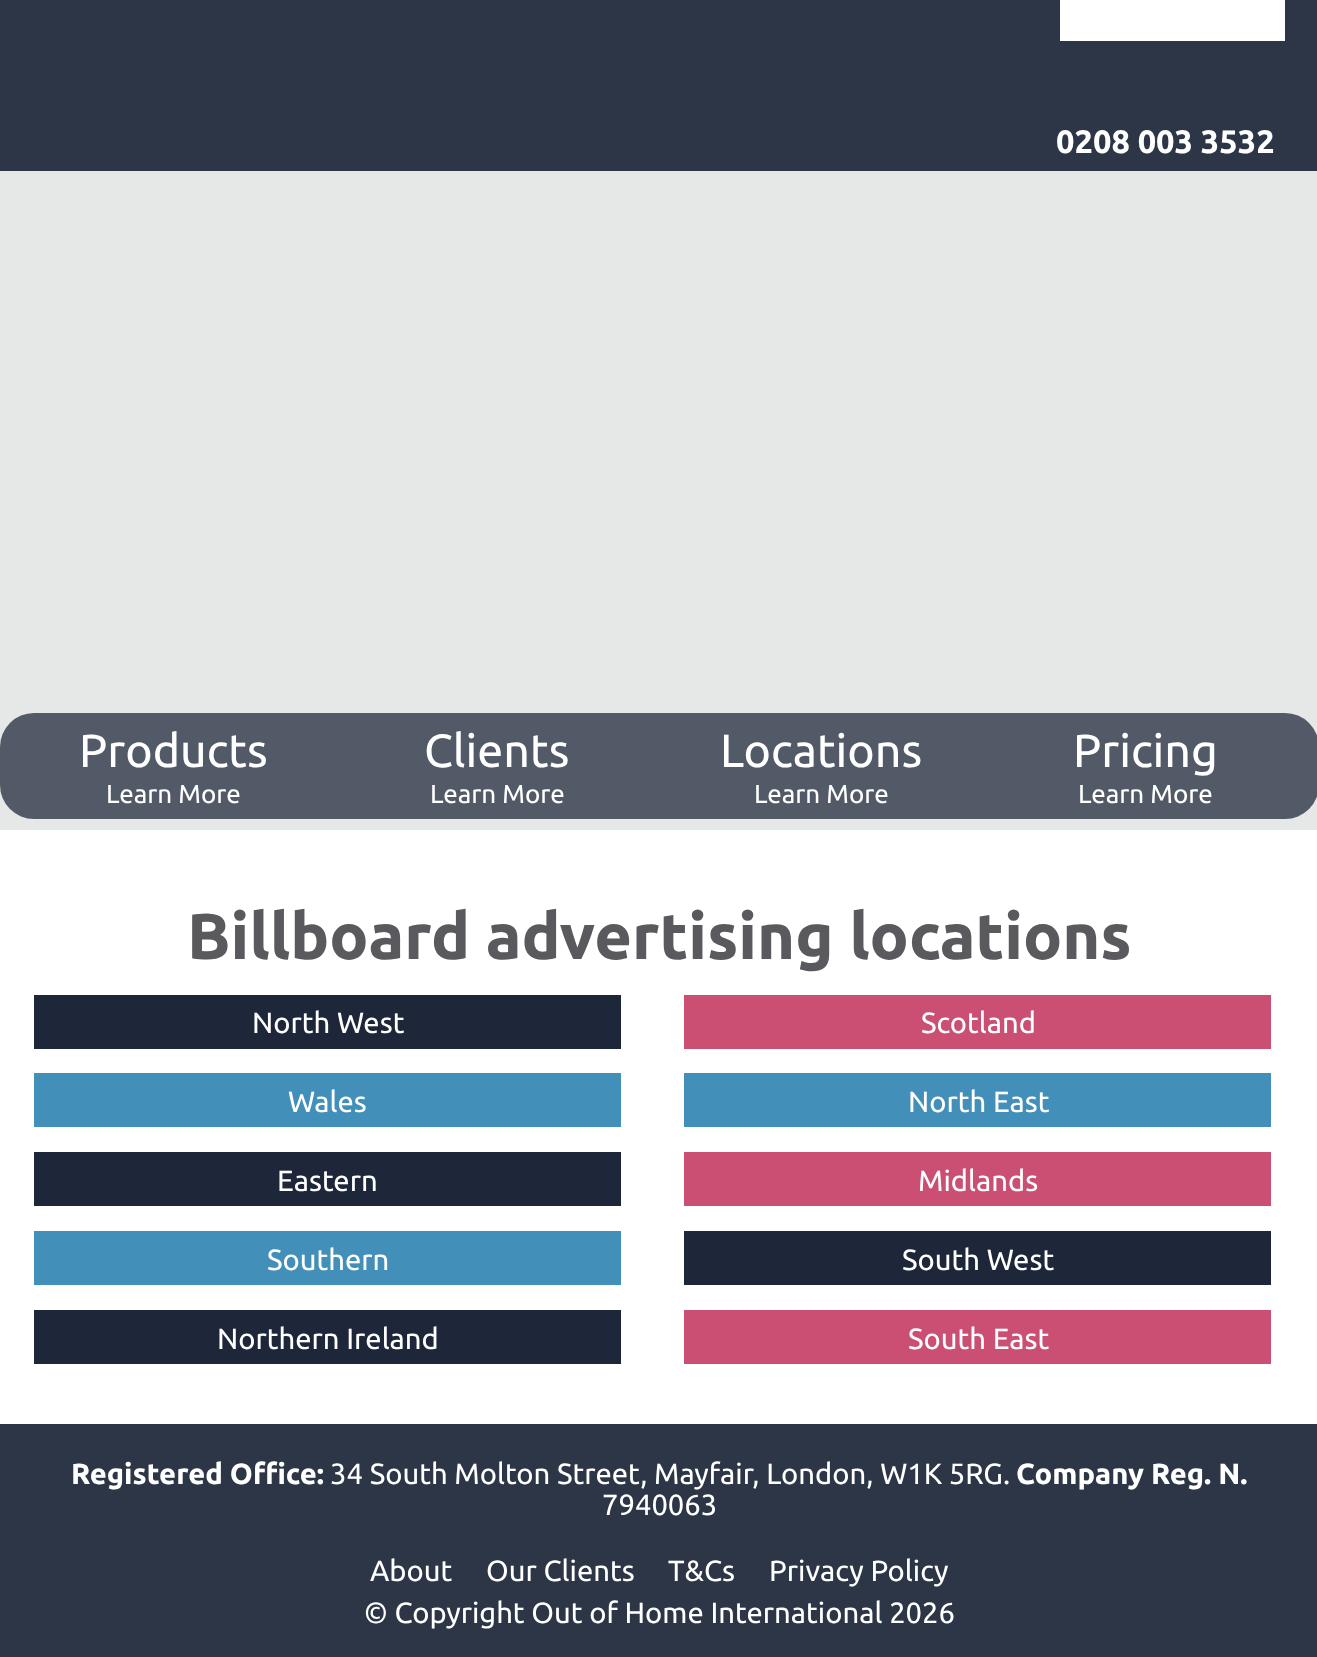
(async () => {
    const canvas = document.querySelector("canvas");
    canvas.width = 1317;
    canvas.height = 1657;
    const context = canvas.getContext("2d");
    context.miterLimit = 4;
    context.fontKerning = "normal";
    function write(s, x, y, font, color) {
        context.font = font;
        context.fillStyle = color;
        context.fillText(s, x, y);
    }
    function block(x, y, w, h, color) {
        context.fillStyle = color;
        context.fillRect(x, y, w, h);
    }
    function card(x, y, w, h, r, color) {
        context.fillStyle = color;
        context.beginPath();
        context.roundRect(x, y, w, h, r);
        context.fill();
    }

    block(0, 0, 1317, 1657, "rgb(230, 231, 231)");
    block(0, 0, 1317, 171, "rgb(45, 54, 71)");
    block(1060, 0, 225, 41, "rgb(255, 255, 255)");
    write("0208 003 3532", 1056, 153, "bold 32.5px Ubuntu", "rgb(255, 255, 255)");
    block(0, 830, 1317, 594, "rgb(255, 255, 255)");
    card(0, 713, 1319, 106, 34, "rgb(82, 89, 103)");
    write("Products", 79, 767, "46.5px Ubuntu", "rgb(255, 255, 255)");
    write("Learn More", 106, 803, "26px Ubuntu", "rgb(255, 255, 255)");
    write("Clients", 424, 767, "46.5px Ubuntu", "rgb(255, 255, 255)");
    write("Learn More", 430, 803, "26px Ubuntu", "rgb(255, 255, 255)");
    write("Locations", 720, 767, "46.5px Ubuntu", "rgb(255, 255, 255)");
    write("Learn More", 754, 803, "26px Ubuntu", "rgb(255, 255, 255)");
    write("Pricing", 1073, 767, "46.5px Ubuntu", "rgb(255, 255, 255)");
    write("Learn More", 1078, 803, "26px Ubuntu", "rgb(255, 255, 255)");
    write("Billboard advertising locations", 187, 959, "bold 64.75px Ubuntu", "rgb(89, 89, 94)");
    block(34, 995, 587, 54, "rgb(29, 39, 57)");
    write("North West", 252, 1033, "29.2px Ubuntu", "rgb(255, 255, 255)");
    block(684, 995, 587, 54, "rgb(203, 79, 114)");
    write("Scotland", 921, 1033, "29.2px Ubuntu", "rgb(255, 255, 255)");
    block(34, 1073, 587, 54, "rgb(66, 144, 186)");
    write("Wales", 288, 1112, "29.2px Ubuntu", "rgb(255, 255, 255)");
    block(684, 1073, 587, 54, "rgb(66, 144, 186)");
    write("North East", 908, 1112, "29.2px Ubuntu", "rgb(255, 255, 255)");
    block(34, 1152, 587, 54, "rgb(29, 39, 57)");
    write("Eastern", 277, 1191, "29.2px Ubuntu", "rgb(255, 255, 255)");
    block(684, 1152, 587, 54, "rgb(203, 79, 114)");
    write("Midlands", 918, 1191, "29.2px Ubuntu", "rgb(255, 255, 255)");
    block(34, 1231, 587, 54, "rgb(66, 144, 186)");
    write("Southern", 267, 1270, "29.2px Ubuntu", "rgb(255, 255, 255)");
    block(684, 1231, 587, 54, "rgb(29, 39, 57)");
    write("South West", 902, 1270, "29.2px Ubuntu", "rgb(255, 255, 255)");
    block(34, 1310, 587, 54, "rgb(29, 39, 57)");
    write("Northern Ireland", 217, 1349, "29.2px Ubuntu", "rgb(255, 255, 255)");
    block(684, 1310, 587, 54, "rgb(203, 79, 114)");
    write("South East", 908, 1349, "29.2px Ubuntu", "rgb(255, 255, 255)");
    block(0, 1424, 1317, 233, "rgb(45, 54, 71)");
    write("Registered Office:", 71, 1484, "bold 29.2px Ubuntu", "rgb(255, 255, 255)");
    write("34 South Molton Street, Mayfair, London, W1K 5RG.", 330, 1484, "29.2px Ubuntu", "rgb(255, 255, 255)");
    write("Company Reg. N.", 1016, 1484, "bold 29.2px Ubuntu", "rgb(255, 255, 255)");
    write("7940063", 602, 1515, "29.2px Ubuntu", "rgb(255, 255, 255)");
    write("About", 370, 1581, "29.2px Ubuntu", "rgb(255, 255, 255)");
    write("Our Clients", 486, 1581, "29.2px Ubuntu", "rgb(255, 255, 255)");
    write("T&Cs", 668, 1581, "29.2px Ubuntu", "rgb(255, 255, 255)");
    write("Privacy Policy", 769, 1581, "29.2px Ubuntu", "rgb(255, 255, 255)");
    write("© Copyright Out of Home International 2026", 364, 1623, "29.2px Ubuntu", "rgb(255, 255, 255)");
})();
